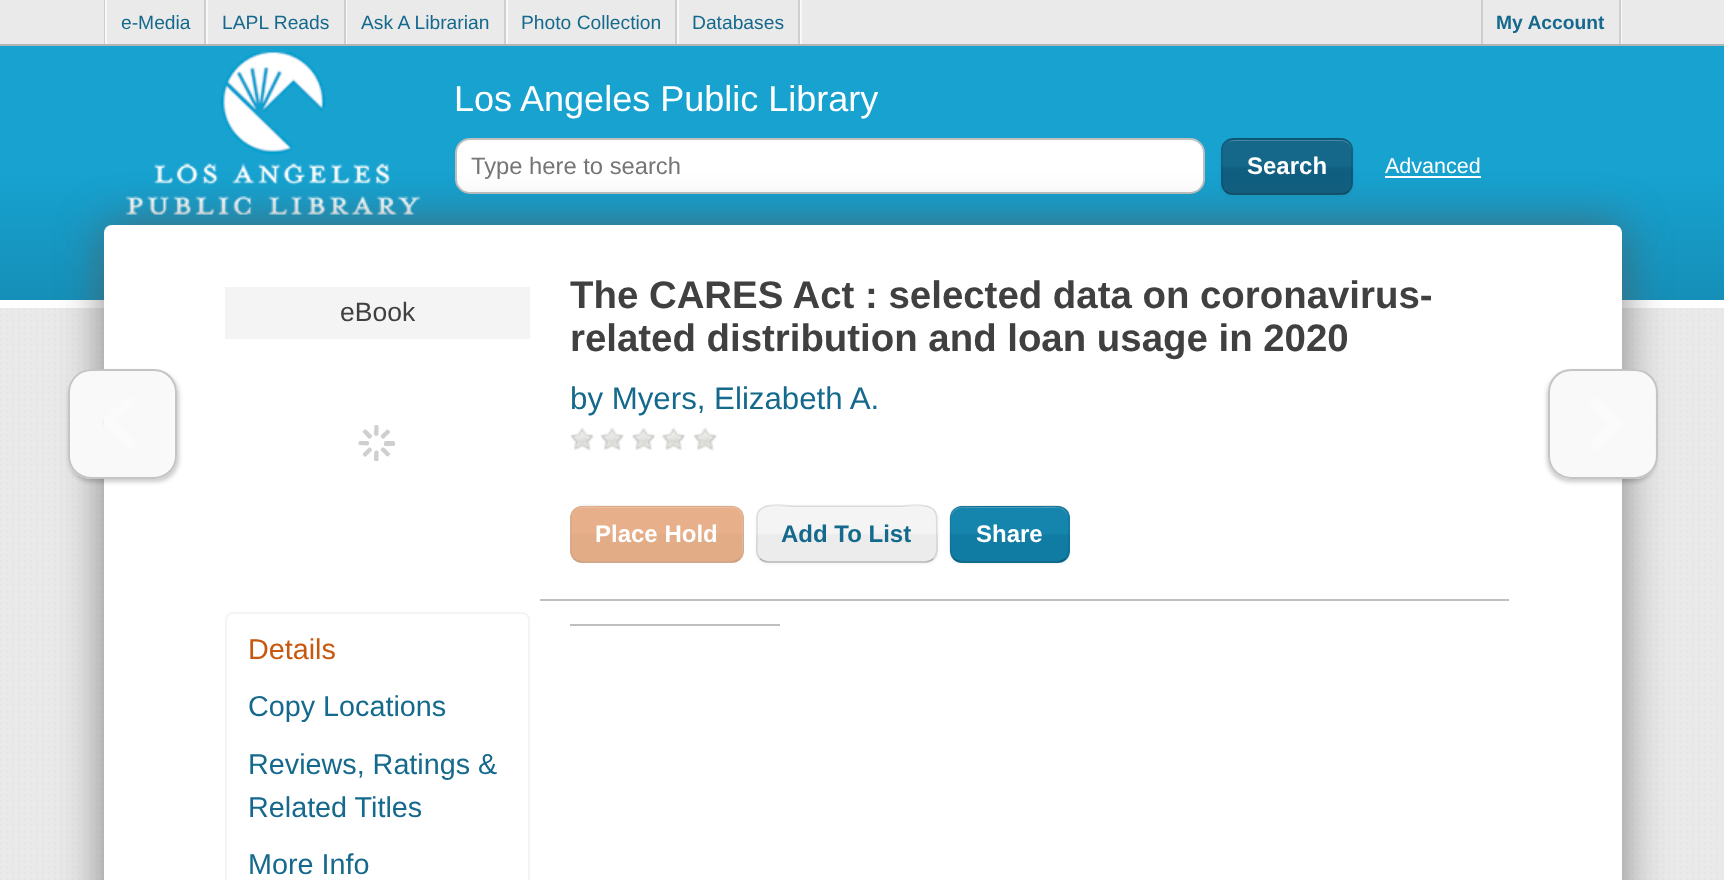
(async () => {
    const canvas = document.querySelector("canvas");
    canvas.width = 1724;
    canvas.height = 880;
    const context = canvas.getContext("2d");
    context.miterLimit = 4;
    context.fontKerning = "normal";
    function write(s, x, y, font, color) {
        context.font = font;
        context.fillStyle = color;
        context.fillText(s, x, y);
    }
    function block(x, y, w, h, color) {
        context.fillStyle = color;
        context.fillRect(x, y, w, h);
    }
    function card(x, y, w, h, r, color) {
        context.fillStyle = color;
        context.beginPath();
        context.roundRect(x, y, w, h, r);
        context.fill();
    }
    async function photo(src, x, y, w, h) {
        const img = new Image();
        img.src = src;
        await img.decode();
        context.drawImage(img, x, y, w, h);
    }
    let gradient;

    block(0, 0, 1724, 880, "rgb(234, 234, 234)");
    block(104, 0, 1, 44, "rgb(206, 206, 206)");
    block(206, 0, 2, 44, "rgb(248, 248, 248)");
    block(105, 0, 2, 44, "rgb(248, 248, 248)");
    block(204, 0, 2, 44, "rgb(206, 206, 206)");
    write("e-Media", 121, 29, "19.25px Liberation Sans", "rgb(21, 105, 140)");
    block(346, 0, 1, 44, "rgb(248, 248, 248)");
    block(344, 0, 2, 44, "rgb(206, 206, 206)");
    write("LAPL Reads", 222, 29, "19.25px Liberation Sans", "rgb(21, 105, 140)");
    block(506, 0, 2, 44, "rgb(248, 248, 248)");
    block(504, 0, 2, 44, "rgb(206, 206, 206)");
    write("Ask A Librarian", 361, 29, "19.25px Liberation Sans", "rgb(21, 105, 140)");
    block(677, 0, 2, 44, "rgb(248, 248, 248)");
    block(675, 0, 2, 44, "rgb(206, 206, 206)");
    write("Photo Collection", 521, 29, "19.25px Liberation Sans", "rgb(21, 105, 140)");
    block(800, 0, 2, 44, "rgb(248, 248, 248)");
    block(798, 0, 2, 44, "rgb(206, 206, 206)");
    write("Databases", 692, 29, "19.25px Liberation Sans", "rgb(21, 105, 140)");
    block(1481, 0, 2, 44, "rgb(206, 206, 206)");
    block(1621, 0, 1, 44, "rgb(248, 248, 248)");
    block(1619, 0, 2, 44, "rgb(206, 206, 206)");
    write("My Account", 1496, 29, "bold 19.25px Liberation Sans", "rgb(21, 105, 140)");
    gradient = context.createLinearGradient(863, 45, 863, 300);
    gradient.addColorStop(0.5, "rgb(23, 162, 208)");
    gradient.addColorStop(1, "rgb(21, 143, 184)");
    context.fillStyle = gradient;
    context.fillRect(0, 46, 1724, 254);
    block(0, 44, 1724, 2, "rgb(180, 180, 180)");
    block(0, 300, 1724, 8, "rgb(255, 255, 255)");
    await photo("media/1.png", 125, 52, 296, 163);
    write("Los Angeles Public Library", 454, 111, "36px Liberation Sans", "rgb(255, 255, 255)");
    context.beginPath();
    context.roundRect(456, 139, 748, 54, 14);
    context.fill();
    context.strokeStyle = "rgb(191, 191, 191)";
    context.lineWidth = 2;
    context.stroke();
    write("Type here to search", 471, 174, "23.75px Liberation Sans", "rgb(117, 117, 117)");
    context.fillStyle = "rgba(0, 0, 0, 0.05)";
    context.filter = "blur(1.5px)";
    context.beginPath();
    context.roundRect(1221, 140, 132, 57, 12);
    context.fill();
    context.filter = "none";
    context.save();
    context.beginPath();
    context.roundRect(1221, 138, 132, 57, 12);
    context.clip();
    gradient = context.createLinearGradient(1287, 86, 1287, 140);
    gradient.addColorStop(0.48, "rgb(21, 104, 138)");
    gradient.addColorStop(0.52, "rgb(16, 95, 128)");
    context.fillStyle = gradient;
    context.fillRect(1221, 138, 132, 2);
    gradient = context.createLinearGradient(1287, 140, 1287, 194);
    gradient.addColorStop(0.48, "rgb(21, 104, 138)");
    gradient.addColorStop(0.52, "rgb(16, 95, 128)");
    context.fillStyle = gradient;
    context.fillRect(1221, 140, 132, 54);
    gradient = context.createLinearGradient(1287, 194, 1287, 248);
    gradient.addColorStop(0.48, "rgb(21, 104, 138)");
    gradient.addColorStop(0.52, "rgb(16, 95, 128)");
    context.fillStyle = gradient;
    context.fillRect(1221, 194, 132, 1);
    context.restore();
    context.fillStyle = "rgb(68, 134, 161)";
    context.beginPath();
    context.moveTo(1233, 141);
    context.lineTo(1341, 141);
    context.bezierCurveTo(1347, 141, 1352, 146, 1352, 152);
    context.lineTo(1352, 151);
    context.bezierCurveTo(1352, 145, 1347, 140, 1341, 140);
    context.lineTo(1234, 140);
    context.bezierCurveTo(1231, 140, 1228, 142, 1226, 144);
    context.bezierCurveTo(1228, 142, 1230, 141, 1233, 141);
    context.closePath();
    context.fill();
    context.beginPath();
    context.moveTo(1349, 191);
    context.bezierCurveTo(1347, 193, 1344, 194, 1341, 194);
    context.lineTo(1233, 194);
    context.bezierCurveTo(1230, 194, 1227, 193, 1225, 191);
    context.strokeStyle = "rgba(0, 0, 0, 0.25)";
    context.lineWidth = 1.5;
    context.stroke();
    context.beginPath();
    context.moveTo(1225, 191);
    context.bezierCurveTo(1221.5, 187, 1222, 182.5, 1222, 177.5);
    context.lineTo(1222, 148);
    context.bezierCurveTo(1224.5, 135, 1242.5, 139, 1251, 139);
    context.lineTo(1323, 139);
    context.bezierCurveTo(1331.5, 139, 1351, 135, 1352, 149);
    context.lineTo(1352, 177.5);
    context.bezierCurveTo(1352, 182.5, 1352.5, 187, 1349, 191);
    context.strokeStyle = "rgba(0, 0, 0, 0.1)";
    context.stroke();
    write("Search", 1247, 174, "bold 24px Liberation Sans", "rgb(255, 255, 255)");
    write("Advanced", 1385, 173, "21.5px Liberation Sans", "rgb(255, 255, 255)");
    block(1385, 176, 96, 2, "rgb(255, 255, 255)");
    await photo("media/2.png", 0, 308, 1723, 572);
    context.fillStyle = "rgba(85, 85, 85, 0.7)";
    context.filter = "blur(22.5px)";
    context.beginPath();
    context.roundRect(104, 225, 1518, 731, 8);
    context.fill();
    context.filter = "none";
    card(104, 225, 1518, 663, 8, "rgb(255, 255, 255)");
    context.save();
    context.beginPath();
    context.moveTo(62, 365);
    context.lineTo(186, 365);
    context.lineTo(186, 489);
    context.lineTo(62, 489);
    context.closePath();
    context.moveTo(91, 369);
    context.lineTo(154, 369);
    context.bezierCurveTo(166.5, 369, 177, 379.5, 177, 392);
    context.lineTo(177, 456);
    context.bezierCurveTo(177, 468.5, 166.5, 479, 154, 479);
    context.lineTo(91, 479);
    context.bezierCurveTo(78.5, 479, 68, 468.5, 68, 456);
    context.lineTo(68, 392);
    context.bezierCurveTo(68, 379.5, 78.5, 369, 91, 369);
    context.closePath();
    context.clip("evenodd");
    context.fillStyle = "rgba(0, 0, 0, 0.2)";
    context.filter = "blur(2px)";
    context.beginPath();
    context.roundRect(69, 372, 110, 110, 23);
    context.fill();
    context.filter = "none";
    context.restore();
    await photo("media/3.png", 68, 369, 109, 108);
    context.beginPath();
    context.roundRect(69, 370, 107, 108, 22);
    context.strokeStyle = "rgb(196, 196, 196)";
    context.lineWidth = 2;
    context.stroke();
    block(225, 287, 305, 52, "rgb(244, 244, 244)");
    write("eBook", 340, 321, "26.5px Liberation Sans", "rgb(64, 64, 64)");
    card(384, 441, 11, 5, 1.5, "rgb(207, 207, 207)");
    context.beginPath();
    context.moveTo(384.5, 448);
    context.lineTo(390, 453.5);
    context.bezierCurveTo(390, 454, 390, 455, 389.5, 455);
    context.bezierCurveTo(387, 458, 386.5, 456, 384, 453.5);
    context.lineTo(381, 450.5);
    context.bezierCurveTo(380, 449, 383, 446.5, 384.5, 448);
    context.closePath();
    context.moveTo(378.5, 452);
    context.lineTo(378.5, 460);
    context.bezierCurveTo(378.5, 460.5, 378, 461, 377, 461);
    context.bezierCurveTo(373, 461, 374, 459.5, 374, 456);
    context.lineTo(374.5, 451.5);
    context.bezierCurveTo(375, 450, 378.5, 450, 378.5, 452);
    context.closePath();
    context.moveTo(371.5, 451);
    context.lineTo(366, 456.5);
    context.bezierCurveTo(365.5, 457, 364.5, 456.5, 364, 456.5);
    context.bezierCurveTo(361.5, 453.5, 363.5, 453, 366, 450.5);
    context.lineTo(369, 447.5);
    context.bezierCurveTo(370.5, 447, 373, 449.5, 371.5, 451);
    context.closePath();
    context.moveTo(367.5, 445.5);
    context.lineTo(359.5, 445);
    context.bezierCurveTo(359, 445, 358.5, 444.5, 358.5, 444);
    context.bezierCurveTo(358.5, 440, 360, 441, 363.5, 441);
    context.lineTo(368, 441);
    context.bezierCurveTo(369.5, 441.5, 369.5, 445.5, 367.5, 445.5);
    context.closePath();
    context.moveTo(368.5, 438.5);
    context.lineTo(363, 432.5);
    context.bezierCurveTo(362.5, 432, 362.5, 431.5, 363, 431);
    context.bezierCurveTo(366, 428, 366.5, 430, 369, 432.5);
    context.lineTo(372, 435.5);
    context.bezierCurveTo(372.5, 437, 370, 439.5, 368.5, 438.5);
    context.closePath();
    context.fill();
    context.beginPath();
    context.moveTo(374, 434);
    context.lineTo(374.5, 426);
    context.bezierCurveTo(374.5, 425.5, 375, 425, 375.5, 425);
    context.bezierCurveTo(379.5, 425, 378.5, 426.5, 378.5, 430.5);
    context.lineTo(378.5, 434.5);
    context.bezierCurveTo(378, 436.5, 374, 436, 374, 434);
    context.closePath();
    context.moveTo(381, 435);
    context.lineTo(387, 429.5);
    context.bezierCurveTo(387.5, 429, 388, 429.5, 388.5, 430);
    context.bezierCurveTo(391.5, 432.5, 389.5, 433, 387, 435.5);
    context.lineTo(384, 438.5);
    context.bezierCurveTo(382, 439.5, 380, 436.5, 381, 435);
    context.closePath();
    context.fill();
    context.beginPath();
    context.roundRect(226, 613, 303, 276, 7);
    context.strokeStyle = "rgb(244, 244, 244)";
    context.stroke();
    write("Details", 248, 659, "28.75px Liberation Sans", "rgb(198, 89, 16)");
    write("Copy Locations", 248, 716, "28.75px Liberation Sans", "rgb(21, 105, 140)");
    write("Reviews, Ratings &", 248, 774, "28.75px Liberation Sans", "rgb(21, 105, 140)");
    write("Related Titles", 248, 817, "28.75px Liberation Sans", "rgb(21, 105, 140)");
    write("More Info", 248, 874, "28.75px Liberation Sans", "rgb(21, 105, 140)");
    block(540, 599, 969, 2, "rgb(191, 191, 191)");
    write("The CARES Act : selected data on coronavirus-", 570, 308, "bold 38.4px Liberation Sans", "rgb(64, 64, 64)");
    write("related distribution and loan usage in 2020", 570, 351, "bold 38.4px Liberation Sans", "rgb(64, 64, 64)");
    write("by Myers, Elizabeth A.", 570, 409, "31.25px Liberation Sans", "rgb(21, 105, 140)");
    await photo("media/4.png", 570, 427, 24, 24);
    await photo("media/4.png", 600, 427, 24, 24);
    await photo("media/5.png", 632, 428, 24, 23);
    await photo("media/5.png", 662, 428, 24, 23);
    await photo("media/4.png", 693, 427, 24, 24);
    context.save();
    context.beginPath();
    context.roundRect(570, 506, 174, 57, 12);
    context.clip();
    gradient = context.createLinearGradient(657, 453, 657, 507);
    gradient.addColorStop(0.48, "rgb(231, 176, 138)");
    gradient.addColorStop(0.52, "rgb(226, 172, 135)");
    context.fillStyle = gradient;
    context.fillRect(570, 506, 174, 1);
    gradient = context.createLinearGradient(657, 507, 657, 561);
    gradient.addColorStop(0.48, "rgb(231, 176, 138)");
    gradient.addColorStop(0.52, "rgb(226, 172, 135)");
    context.fillStyle = gradient;
    context.fillRect(570, 507, 174, 54);
    gradient = context.createLinearGradient(657, 561, 657, 615);
    gradient.addColorStop(0.48, "rgb(231, 176, 138)");
    gradient.addColorStop(0.52, "rgb(226, 172, 135)");
    context.fillStyle = gradient;
    context.fillRect(570, 561, 174, 2);
    context.restore();
    context.fillStyle = "rgba(255, 255, 255, 0.2)";
    context.beginPath();
    context.moveTo(582, 508);
    context.lineTo(732, 508);
    context.bezierCurveTo(738, 508, 742, 513, 742, 519);
    context.lineTo(742, 552);
    context.lineTo(741, 556);
    context.bezierCurveTo(742, 554, 743, 552, 743, 550);
    context.lineTo(743, 518);
    context.bezierCurveTo(743, 512, 738, 507, 732, 507);
    context.lineTo(583, 507);
    context.bezierCurveTo(577, 507, 572, 512, 572, 518);
    context.lineTo(572, 519);
    context.bezierCurveTo(572, 513, 576, 508, 582, 508);
    context.closePath();
    context.fill();
    context.beginPath();
    context.moveTo(740, 558.5);
    context.bezierCurveTo(738, 560.5, 735, 562, 732, 562);
    context.lineTo(582, 562);
    context.bezierCurveTo(579, 562, 576, 560.5, 574, 558.5);
    context.strokeStyle = "rgba(128, 128, 128, 0.25)";
    context.lineWidth = 1.5;
    context.stroke();
    context.beginPath();
    context.moveTo(574, 558.5);
    context.bezierCurveTo(570.5, 554.5, 571, 550, 571, 545);
    context.lineTo(571, 515.5);
    context.bezierCurveTo(574, 500.5, 600, 506, 607, 506);
    context.lineTo(707, 506);
    context.bezierCurveTo(746, 506, 743, 502.5, 743, 539.5);
    context.bezierCurveTo(743, 545.5, 745, 553.5, 740, 558.5);
    context.strokeStyle = "rgba(128, 128, 128, 0.1)";
    context.stroke();
    write("Place Hold", 595, 542, "bold 24px Liberation Sans", "rgb(255, 255, 255)");
    context.fillStyle = "rgba(0, 0, 0, 0.05)";
    context.filter = "blur(1.5px)";
    context.beginPath();
    context.roundRect(756, 507, 182, 57, 12);
    context.fill();
    context.filter = "none";
    context.save();
    context.beginPath();
    context.roundRect(756, 506, 182, 57, 12);
    context.clip();
    gradient = context.createLinearGradient(847, 453, 847, 507);
    gradient.addColorStop(0.48, "rgb(244, 244, 244)");
    gradient.addColorStop(0.52, "rgb(237, 236, 236)");
    context.fillStyle = gradient;
    context.fillRect(756, 506, 182, 1);
    gradient = context.createLinearGradient(847, 507, 847, 561);
    gradient.addColorStop(0.48, "rgb(244, 244, 244)");
    gradient.addColorStop(0.52, "rgb(237, 236, 236)");
    context.fillStyle = gradient;
    context.fillRect(756, 507, 182, 54);
    context.restore();
    context.fillStyle = "rgba(255, 255, 255, 0.2)";
    context.beginPath();
    context.moveTo(768, 508);
    context.lineTo(926, 508);
    context.bezierCurveTo(931, 508, 936, 513, 936, 519);
    context.bezierCurveTo(936, 501, 909, 507, 899, 507);
    context.lineTo(795, 507);
    context.bezierCurveTo(785, 507, 758, 501, 758, 519);
    context.bezierCurveTo(758, 513, 762, 508, 768, 508);
    context.closePath();
    context.fill();
    context.beginPath();
    context.moveTo(933.5, 558.5);
    context.bezierCurveTo(931.5, 560.5, 928.5, 562, 925.5, 562);
    context.lineTo(768, 562);
    context.bezierCurveTo(765, 562, 762, 560.5, 760, 558.5);
    context.strokeStyle = "rgba(0, 0, 0, 0.25)";
    context.stroke();
    context.beginPath();
    context.moveTo(760, 558.5);
    context.bezierCurveTo(755, 553.5, 757, 545.5, 757, 539.5);
    context.lineTo(757, 516.5);
    context.bezierCurveTo(758.5, 500, 787.5, 506, 794, 506);
    context.lineTo(899, 506);
    context.bezierCurveTo(906, 506, 935, 500, 936.5, 516.5);
    context.lineTo(937, 539.5);
    context.bezierCurveTo(937, 545.5, 938.5, 553.5, 933.5, 558.5);
    context.strokeStyle = "rgba(0, 0, 0, 0.1)";
    context.stroke();
    write("Add To List", 781, 542, "bold 24px Liberation Sans", "rgb(21, 105, 140)");
    context.fillStyle = "rgba(0, 0, 0, 0.05)";
    context.filter = "blur(1.5px)";
    context.beginPath();
    context.roundRect(950, 507, 120, 57, 12);
    context.fill();
    context.filter = "none";
    context.save();
    context.beginPath();
    context.roundRect(950, 506, 120, 57, 12);
    context.clip();
    gradient = context.createLinearGradient(1010, 453, 1010, 507);
    gradient.addColorStop(0.48, "rgb(22, 133, 173)");
    gradient.addColorStop(0.52, "rgb(17, 124, 163)");
    context.fillStyle = gradient;
    context.fillRect(950, 506, 120, 1);
    gradient = context.createLinearGradient(1010, 507, 1010, 561);
    gradient.addColorStop(0.48, "rgb(22, 133, 173)");
    gradient.addColorStop(0.52, "rgb(17, 124, 163)");
    context.fillStyle = gradient;
    context.fillRect(950, 507, 120, 54);
    gradient = context.createLinearGradient(1010, 561, 1010, 615);
    gradient.addColorStop(0.48, "rgb(22, 133, 173)");
    gradient.addColorStop(0.52, "rgb(17, 124, 163)");
    context.fillStyle = gradient;
    context.fillRect(950, 561, 120, 2);
    context.restore();
    context.fillStyle = "rgb(69, 157, 189)";
    context.beginPath();
    context.moveTo(962, 508);
    context.lineTo(1058, 508);
    context.bezierCurveTo(1063, 508, 1068, 513, 1068, 519);
    context.bezierCurveTo(1068, 504, 1052, 507, 1041, 507);
    context.lineTo(978, 507);
    context.bezierCurveTo(967, 507, 951, 504, 951, 519);
    context.bezierCurveTo(951, 513, 956, 508, 962, 508);
    context.closePath();
    context.fill();
    context.beginPath();
    context.moveTo(1065.5, 558.5);
    context.bezierCurveTo(1063.5, 560.5, 1060.5, 562, 1057.5, 562);
    context.lineTo(961.5, 562);
    context.bezierCurveTo(958.5, 562, 955.5, 560.5, 953.5, 558.5);
    context.strokeStyle = "rgba(0, 0, 0, 0.25)";
    context.stroke();
    context.beginPath();
    context.moveTo(953.5, 558.5);
    context.bezierCurveTo(950, 554.5, 950, 550, 950, 545);
    context.lineTo(950, 523);
    context.bezierCurveTo(950, 515.5, 951, 507, 960.5, 506.5);
    context.lineTo(1041.5, 506);
    context.bezierCurveTo(1050, 506, 1066, 503, 1068.5, 515.5);
    context.lineTo(1069, 545);
    context.bezierCurveTo(1069, 550, 1069, 554.5, 1065.5, 558.5);
    context.strokeStyle = "rgba(0, 0, 0, 0.1)";
    context.stroke();
    write("Share", 976, 542, "bold 24px Liberation Sans", "rgb(255, 255, 255)");
    block(570, 624, 210, 2, "rgb(191, 191, 191)");
    context.save();
    context.beginPath();
    context.moveTo(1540, 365);
    context.lineTo(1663, 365);
    context.lineTo(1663, 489);
    context.lineTo(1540, 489);
    context.closePath();
    context.moveTo(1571, 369);
    context.lineTo(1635, 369);
    context.bezierCurveTo(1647.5, 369, 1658, 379.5, 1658, 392);
    context.lineTo(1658, 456);
    context.bezierCurveTo(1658, 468.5, 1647.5, 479, 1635, 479);
    context.lineTo(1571, 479);
    context.bezierCurveTo(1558.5, 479, 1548, 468.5, 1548, 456);
    context.lineTo(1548, 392);
    context.bezierCurveTo(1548, 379.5, 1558.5, 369, 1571, 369);
    context.closePath();
    context.clip("evenodd");
    context.fillStyle = "rgba(0, 0, 0, 0.2)";
    context.filter = "blur(2px)";
    context.beginPath();
    context.roundRect(1547, 372, 109, 110, 23);
    context.fill();
    context.filter = "none";
    context.restore();
    await photo("media/6.png", 1549, 369, 108, 110);
    context.beginPath();
    context.roundRect(1549, 370, 108, 108, 22);
    context.strokeStyle = "rgb(196, 196, 196)";
    context.lineWidth = 2;
    context.stroke();
})();
